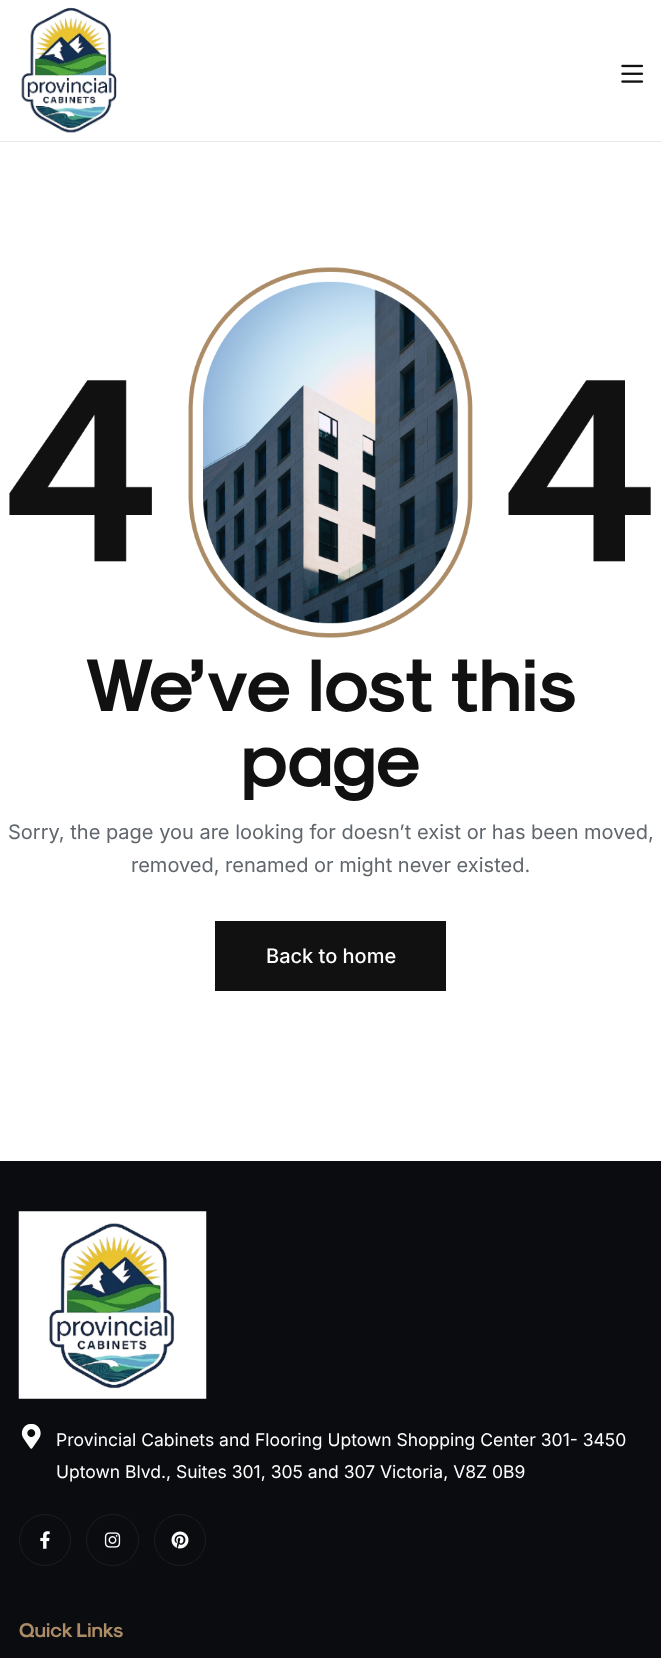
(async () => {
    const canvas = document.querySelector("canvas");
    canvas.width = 661;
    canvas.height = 1658;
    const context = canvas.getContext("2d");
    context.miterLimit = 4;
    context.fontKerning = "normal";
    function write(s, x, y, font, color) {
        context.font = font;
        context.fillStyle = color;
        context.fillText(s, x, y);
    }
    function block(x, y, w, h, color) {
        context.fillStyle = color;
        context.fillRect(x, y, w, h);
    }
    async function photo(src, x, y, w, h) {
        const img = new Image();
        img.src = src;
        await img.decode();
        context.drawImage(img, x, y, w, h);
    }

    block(0, 0, 661, 1658, "rgb(255, 255, 255)");
    block(0, 141, 661, 1, "rgb(232, 232, 232)");
    await photo("media/1.png", 21, 7, 96, 126);
    await photo("media/2.png", 621, 64, 23, 19);
    await photo("media/3.png", 9, 267, 642, 371);
    write("We’ve lost this", 85, 711, "bold 75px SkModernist", "rgb(17, 17, 17)");
    write("page", 241, 786, "bold 75px SkModernist", "rgb(17, 17, 17)");
    write("Sorry, the page you are looking for doesn’t exist or has been moved,", 8, 839, "20px Inter", "rgb(96, 102, 108)");
    write("removed, renamed or might never existed.", 131, 872, "20px Inter", "rgb(96, 102, 108)");
    block(215, 921, 231, 70, "rgb(17, 17, 17)");
    write("Back to home", 266, 963, "500 20px Inter", "rgb(255, 255, 255)");
    block(0, 1161, 661, 497, "rgb(11, 12, 16)");
    await photo("media/4.png", 18, 1211, 189, 188);
    await photo("media/5.png", 21, 1424, 20, 25);
    write("Provincial Cabinets and Flooring Uptown Shopping Center 301- 3450", 56, 1446, "17.5px Inter", "rgb(255, 255, 255)");
    write("Uptown Blvd., Suites 301, 305 and 307 Victoria, V8Z 0B9", 56, 1478, "17.5px Inter", "rgb(255, 255, 255)");
    context.beginPath();
    context.arc(45, 1540, 25.5, 0, Math.PI * 2);
    context.strokeStyle = "rgb(27, 29, 34)";
    context.stroke();
    await photo("media/6.png", 40, 1531, 10, 18);
    context.beginPath();
    context.roundRect(86.5, 1514.5, 52, 51, 25.5);
    context.stroke();
    await photo("media/7.png", 104, 1532, 17, 16);
    context.beginPath();
    context.arc(180, 1540, 25.5, 0, Math.PI * 2);
    context.stroke();
    await photo("media/8.png", 171, 1531, 18, 18);
    write("Quick Links", 19, 1637, "bold 20px SkModernist", "rgb(172, 140, 102)");
})();
